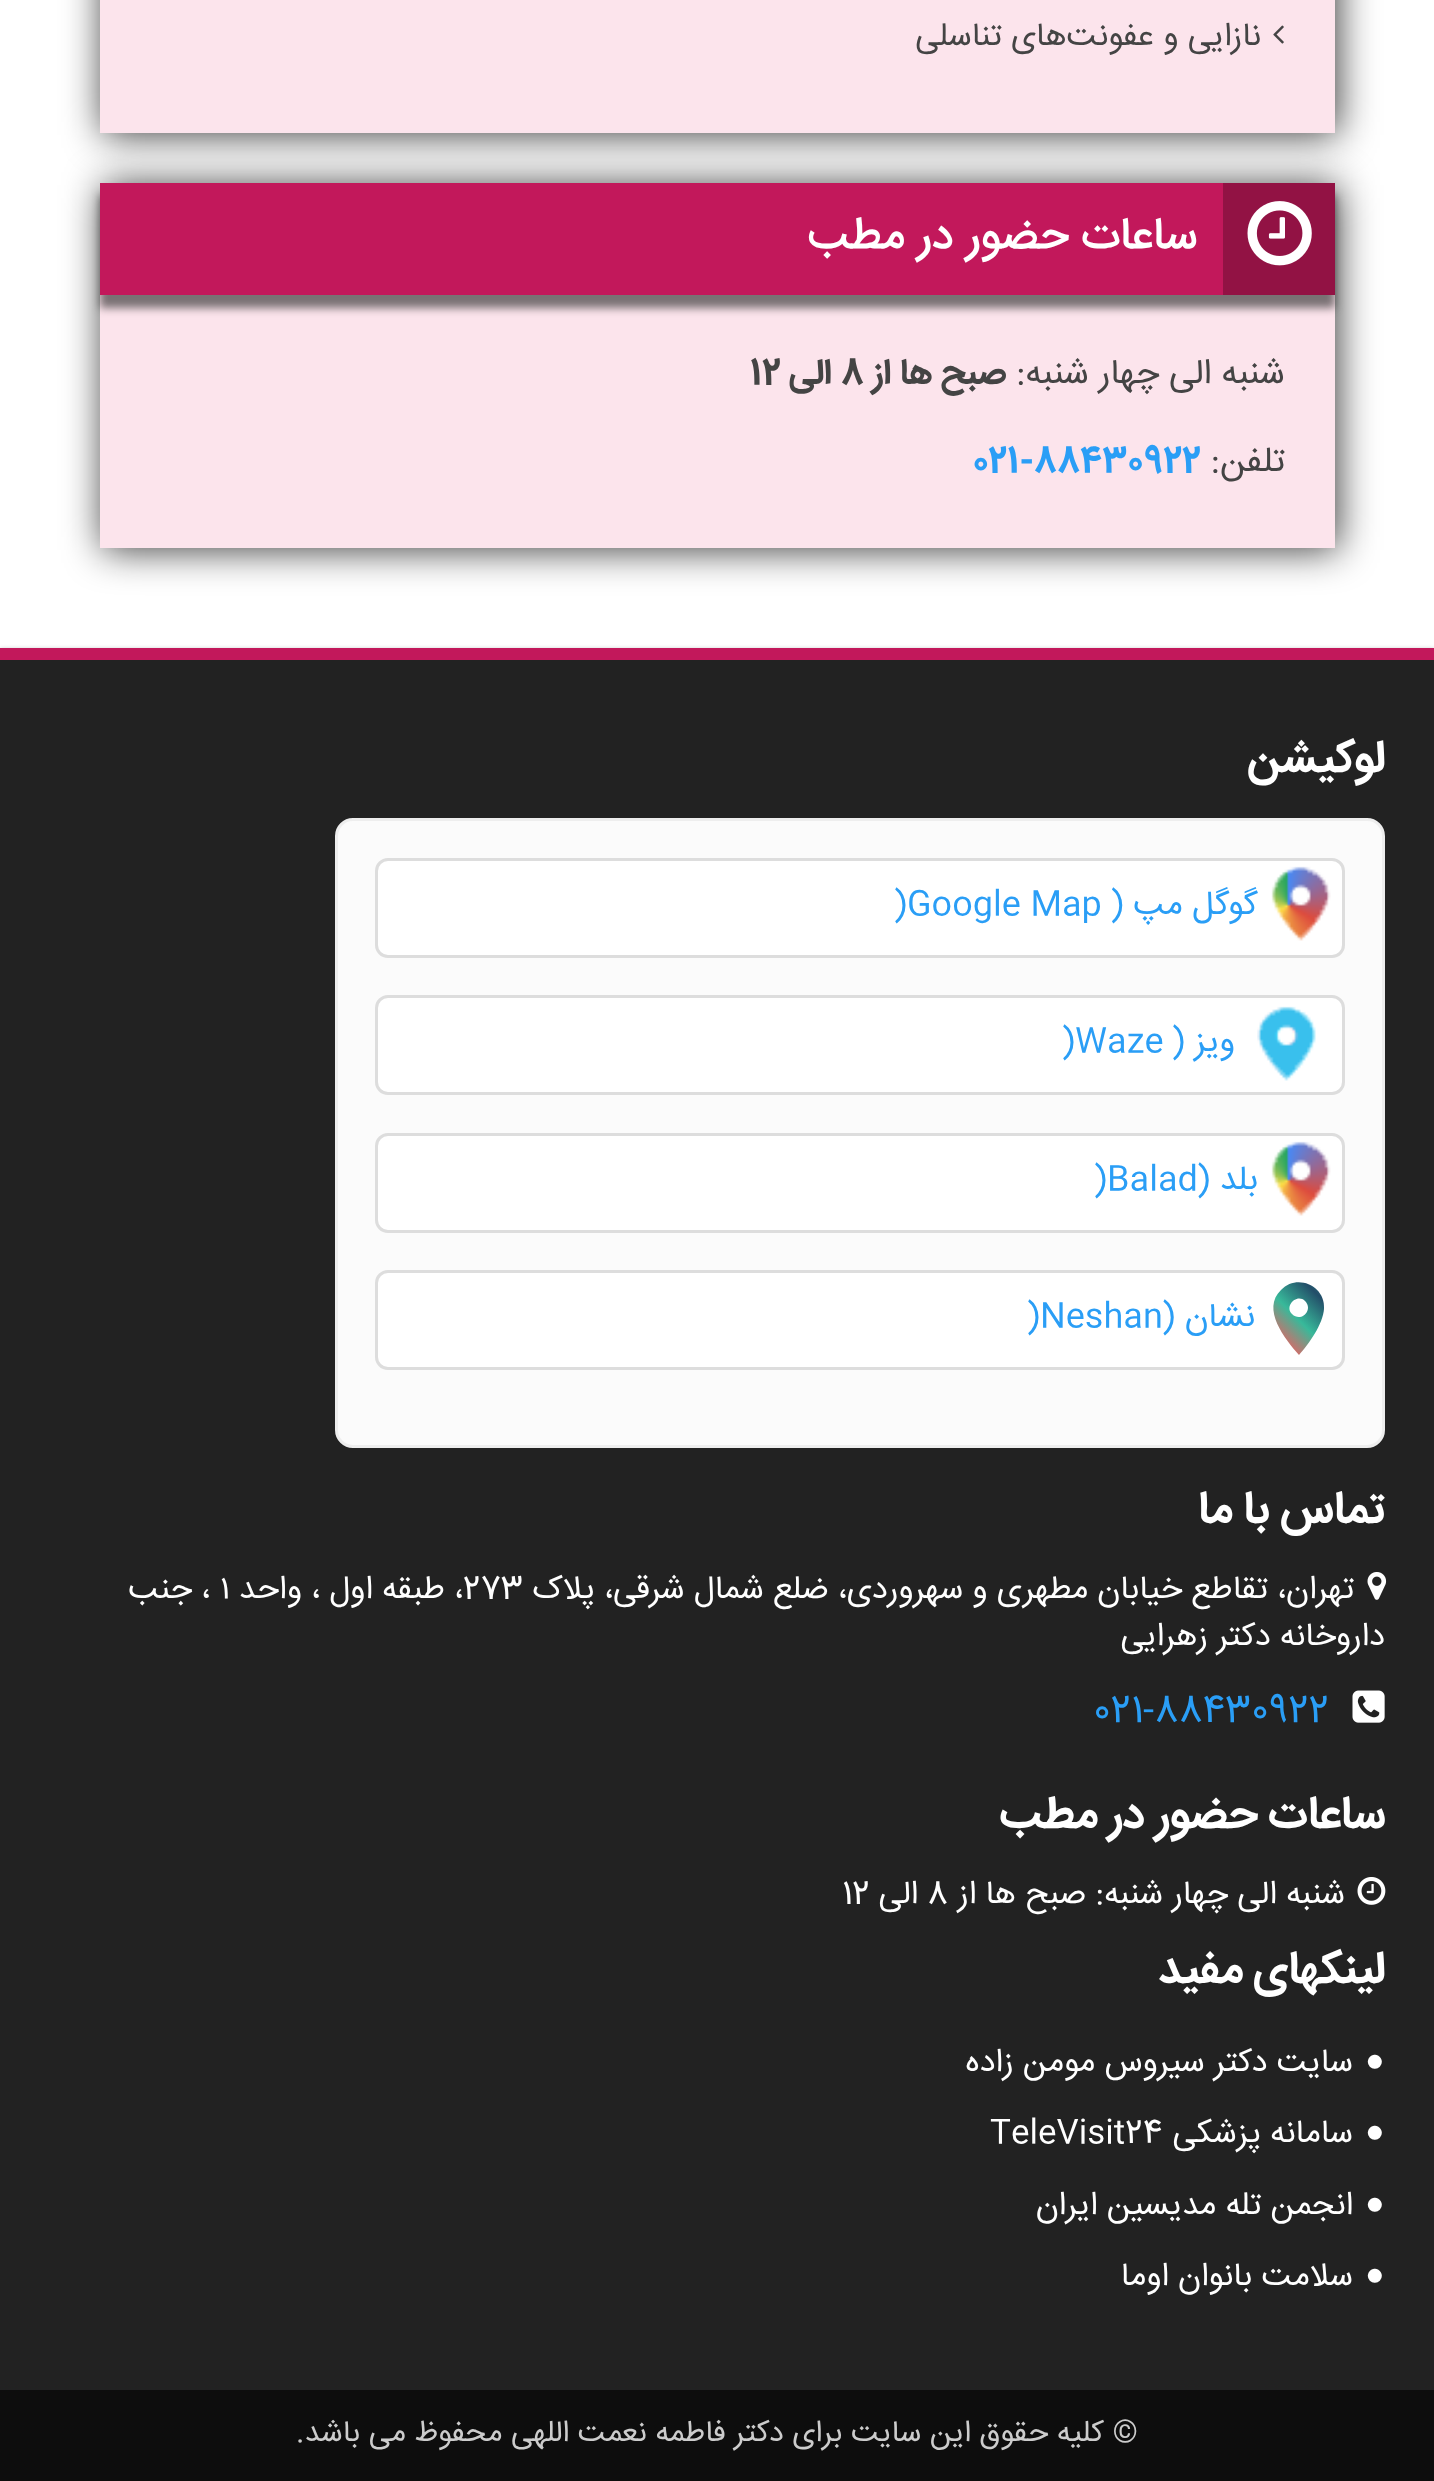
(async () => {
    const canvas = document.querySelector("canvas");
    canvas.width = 1434;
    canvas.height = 2481;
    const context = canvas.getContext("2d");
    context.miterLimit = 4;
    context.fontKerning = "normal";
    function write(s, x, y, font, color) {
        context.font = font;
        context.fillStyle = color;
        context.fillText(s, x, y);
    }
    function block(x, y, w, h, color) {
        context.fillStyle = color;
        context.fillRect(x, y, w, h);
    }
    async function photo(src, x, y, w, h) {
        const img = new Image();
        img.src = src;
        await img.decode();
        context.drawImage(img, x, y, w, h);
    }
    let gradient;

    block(0, 0, 1434, 2481, "rgb(255, 255, 255)");
    context.fillStyle = "rgba(8, 8, 8, 0.79)";
    context.filter = "blur(19px)";
    context.beginPath();
    context.rect(103, -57, 1235, 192);
    context.fill();
    context.filter = "none";
    block(100, 0, 1235, 133, "rgb(252, 228, 236)");
    await photo("media/1.png", 1273, 25, 11, 19);
    context.direction = "rtl";
    write("نازایی و عفونت‌های تناسلی", 1261, 45, "32.5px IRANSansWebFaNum", "rgb(68, 68, 68)");
    context.fillStyle = "rgba(8, 8, 8, 0.79)";
    context.filter = "blur(19px)";
    context.beginPath();
    context.rect(103, 185, 1235, 365);
    context.fill();
    context.filter = "none";
    block(100, 295, 1235, 253, "rgb(252, 228, 236)");
    context.fillStyle = "rgba(50, 50, 50, 0.65)";
    context.filter = "blur(4px)";
    context.beginPath();
    context.rect(100, 195, 1235, 113);
    context.fill();
    context.filter = "none";
    block(100, 183, 1123, 112, "rgb(194, 24, 91)");
    block(1223, 183, 112, 112, "rgb(146, 18, 68)");
    await photo("media/2.png", 1247, 201, 65, 65);
    write("ساعات حضور در مطب", 1197, 248, "500 45px IRANSansWebFaNum", "rgb(255, 255, 255)");
    write("شنبه الی چهار شنبه:", 1285, 383, "35px IRANSansWebFaNum", "rgb(68, 68, 68)");
    write("صبح ها از", 1006, 383, "bold 35px IRANSansWebFaNum", "rgb(68, 68, 68)");
    context.direction = "ltr";
    write("8", 841, 383, "bold 35px IRANSansWebFaNum", "rgb(68, 68, 68)");
    context.direction = "rtl";
    write("الی", 832, 383, "bold 35px IRANSansWebFaNum", "rgb(68, 68, 68)");
    context.direction = "ltr";
    write("12", 750, 383, "bold 35px IRANSansWebFaNum", "rgb(68, 68, 68)");
    context.direction = "rtl";
    write("تلفن:", 1285, 471, "35px IRANSansWebFaNum", "rgb(68, 68, 68)");
    context.direction = "ltr";
    write("021-88430922", 973, 471, "bold 35px IRANSansWebFaNum", "rgb(42, 158, 246)");
    context.fillStyle = "rgba(0, 0, 0, 0.45)";
    context.filter = "blur(2.5px)";
    context.beginPath();
    context.rect(0, 650, 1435, 1743);
    context.fill();
    context.filter = "none";
    block(0, 660, 1434, 1730, "rgb(34, 34, 34)");
    block(0, 648, 1434, 12, "rgb(194, 24, 91)");
    context.direction = "rtl";
    write("لوکیشن", 1385, 771, "bold 45px IRANSansWebFaNum", "rgb(255, 255, 255)");
    context.fillStyle = "rgb(251, 251, 251)";
    context.beginPath();
    context.roundRect(336.5, 819.5, 1047, 627, 16.5);
    context.fill();
    context.strokeStyle = "rgb(238, 238, 238)";
    context.lineWidth = 3;
    context.stroke();
    context.fillStyle = "rgb(255, 255, 255)";
    context.beginPath();
    context.roundRect(376.5, 859.5, 967, 97, 11.5);
    context.fill();
    context.strokeStyle = "rgb(221, 221, 221)";
    context.stroke();
    await photo("media/3.png", 1271, 866, 60, 75);
    write("گوگل مپ (", 1258, 914, "33.5px IRANSansWebFaNum", "rgb(42, 158, 246)");
    context.direction = "ltr";
    write(")Google Map", 894, 914, "33.5px IRANSansWebFaNum", "rgb(42, 158, 246)");
    context.fillStyle = "rgb(255, 255, 255)";
    context.beginPath();
    context.roundRect(376.5, 996.5, 967, 97, 11.5);
    context.fill();
    context.stroke();
    await photo("media/4.png", 1257, 1006, 59, 75);
    context.direction = "rtl";
    write("ویز (", 1235, 1051, "33.5px IRANSansWebFaNum", "rgb(42, 158, 246)");
    context.direction = "ltr";
    write(")Waze", 1062, 1051, "33.5px IRANSansWebFaNum", "rgb(42, 158, 246)");
    context.fillStyle = "rgb(255, 255, 255)";
    context.beginPath();
    context.roundRect(376.5, 1134.5, 967, 97, 11.5);
    context.fill();
    context.stroke();
    await photo("media/3.png", 1271, 1141, 60, 75);
    context.direction = "rtl";
    write("بلد (", 1258, 1189, "33.5px IRANSansWebFaNum", "rgb(42, 158, 246)");
    context.direction = "ltr";
    write(")Balad", 1094, 1189, "33.5px IRANSansWebFaNum", "rgb(42, 158, 246)");
    context.fillStyle = "rgb(255, 255, 255)";
    context.beginPath();
    context.roundRect(376.5, 1271.5, 967, 97, 11.5);
    context.fill();
    context.stroke();
    gradient = context.createLinearGradient(1255, 1364, 1343, 1276);
    gradient.addColorStop(0, "rgb(35, 78, 105)");
    gradient.addColorStop(0.25, "rgb(240, 94, 96)");
    gradient.addColorStop(0.5, "rgb(56, 185, 154)");
    gradient.addColorStop(0.75, "rgb(35, 78, 105)");
    gradient.addColorStop(1, "rgb(56, 185, 154)");
    context.fillStyle = gradient;
    context.beginPath();
    context.moveTo(1292, 1314);
    context.bezierCurveTo(1301, 1323, 1314, 1310, 1305, 1301);
    context.bezierCurveTo(1297, 1293, 1284, 1306, 1292, 1314);
    context.closePath();
    context.moveTo(1281, 1290);
    context.bezierCurveTo(1297, 1273, 1326, 1286, 1324, 1309);
    context.bezierCurveTo(1323, 1324, 1309, 1344, 1299, 1355);
    context.bezierCurveTo(1285, 1339, 1261, 1309, 1281, 1290);
    context.closePath();
    context.fill();
    context.direction = "rtl";
    write("نشان (", 1255, 1326, "33.5px IRANSansWebFaNum", "rgb(42, 158, 246)");
    context.direction = "ltr";
    write(")Neshan", 1027, 1326, "33.5px IRANSansWebFaNum", "rgb(42, 158, 246)");
    context.direction = "rtl";
    write("تماس با ما", 1385, 1522, "bold 45px IRANSansWebFaNum", "rgb(255, 255, 255)");
    await photo("media/5.png", 1367, 1572, 20, 28);
    write("تهران، تقاطع خیابان مطهری و سهروردی، ضلع شمال شرقی، پلاک", 1354, 1598, "32.5px IRANSansWebFaNum", "rgb(255, 255, 255)");
    context.direction = "ltr";
    write("273", 463, 1598, "32.5px IRANSansWebFaNum", "rgb(255, 255, 255)");
    context.direction = "rtl";
    write("، طبقه اول ، واحد", 463, 1598, "32.5px IRANSansWebFaNum", "rgb(255, 255, 255)");
    context.direction = "ltr";
    write("۱", 220, 1598, "32.5px IRANSansWebFaNum", "rgb(255, 255, 255)");
    context.direction = "rtl";
    write("، جنب", 210, 1598, "32.5px IRANSansWebFaNum", "rgb(255, 255, 255)");
    write("داروخانه دکتر زهرایی", 1385, 1645, "32.5px IRANSansWebFaNum", "rgb(255, 255, 255)");
    await photo("media/6.png", 1352, 1690, 33, 33);
    context.direction = "ltr";
    write("021-88430922", 1093, 1721, "37.5px IRANSansWebFaNum", "rgb(42, 158, 246)");
    context.direction = "rtl";
    write("ساعات حضور در مطب", 1385, 1827, "bold 45px IRANSansWebFaNum", "rgb(255, 255, 255)");
    await photo("media/7.png", 1357, 1877, 29, 28);
    write("شنبه الی چهار شنبه: صبح ها از", 1345, 1903, "32.5px IRANSansWebFaNum", "rgb(255, 255, 255)");
    context.direction = "ltr";
    write("8", 927, 1903, "32.5px IRANSansWebFaNum", "rgb(255, 255, 255)");
    context.direction = "rtl";
    write("الی", 918, 1903, "32.5px IRANSansWebFaNum", "rgb(255, 255, 255)");
    context.direction = "ltr";
    write("12", 842, 1903, "32.5px IRANSansWebFaNum", "rgb(255, 255, 255)");
    context.direction = "rtl";
    write("لینکهای مفید", 1385, 1982, "bold 45px IRANSansWebFaNum", "rgb(255, 255, 255)");
    context.direction = "ltr";
    write("●", 1365, 2071, "32.5px Liberation Sans", "rgb(255, 255, 255)");
    context.direction = "rtl";
    write("سایت دکتر سیروس مومن زاده", 1353, 2071, "32.5px IRANSansWebFaNum", "rgb(255, 255, 255)");
    context.direction = "ltr";
    write("●", 1365, 2142, "32.5px Liberation Sans", "rgb(255, 255, 255)");
    context.direction = "rtl";
    write("سامانه پزشکی", 1353, 2142, "32.5px IRANSansWebFaNum", "rgb(255, 255, 255)");
    context.direction = "ltr";
    write("TeleVisit24", 990, 2142, "32.5px IRANSansWebFaNum", "rgb(255, 255, 255)");
    write("●", 1365, 2214, "32.5px Liberation Sans", "rgb(255, 255, 255)");
    context.direction = "rtl";
    write("انجمن تله مدیسین ایران", 1353, 2214, "32.5px IRANSansWebFaNum", "rgb(255, 255, 255)");
    context.direction = "ltr";
    write("●", 1365, 2285, "32.5px Liberation Sans", "rgb(255, 255, 255)");
    context.direction = "rtl";
    write("سلامت بانوان اوما", 1353, 2285, "32.5px IRANSansWebFaNum", "rgb(255, 255, 255)");
    block(0, 2390, 1434, 91, "rgb(13, 13, 13)");
    write("© کلیه حقوق این سایت برای دکتر فاطمه نعمت اللهی محفوظ می باشد.", 1138, 2441, "30px IRANSansWebFaNum", "rgb(204, 204, 204)");
})();
